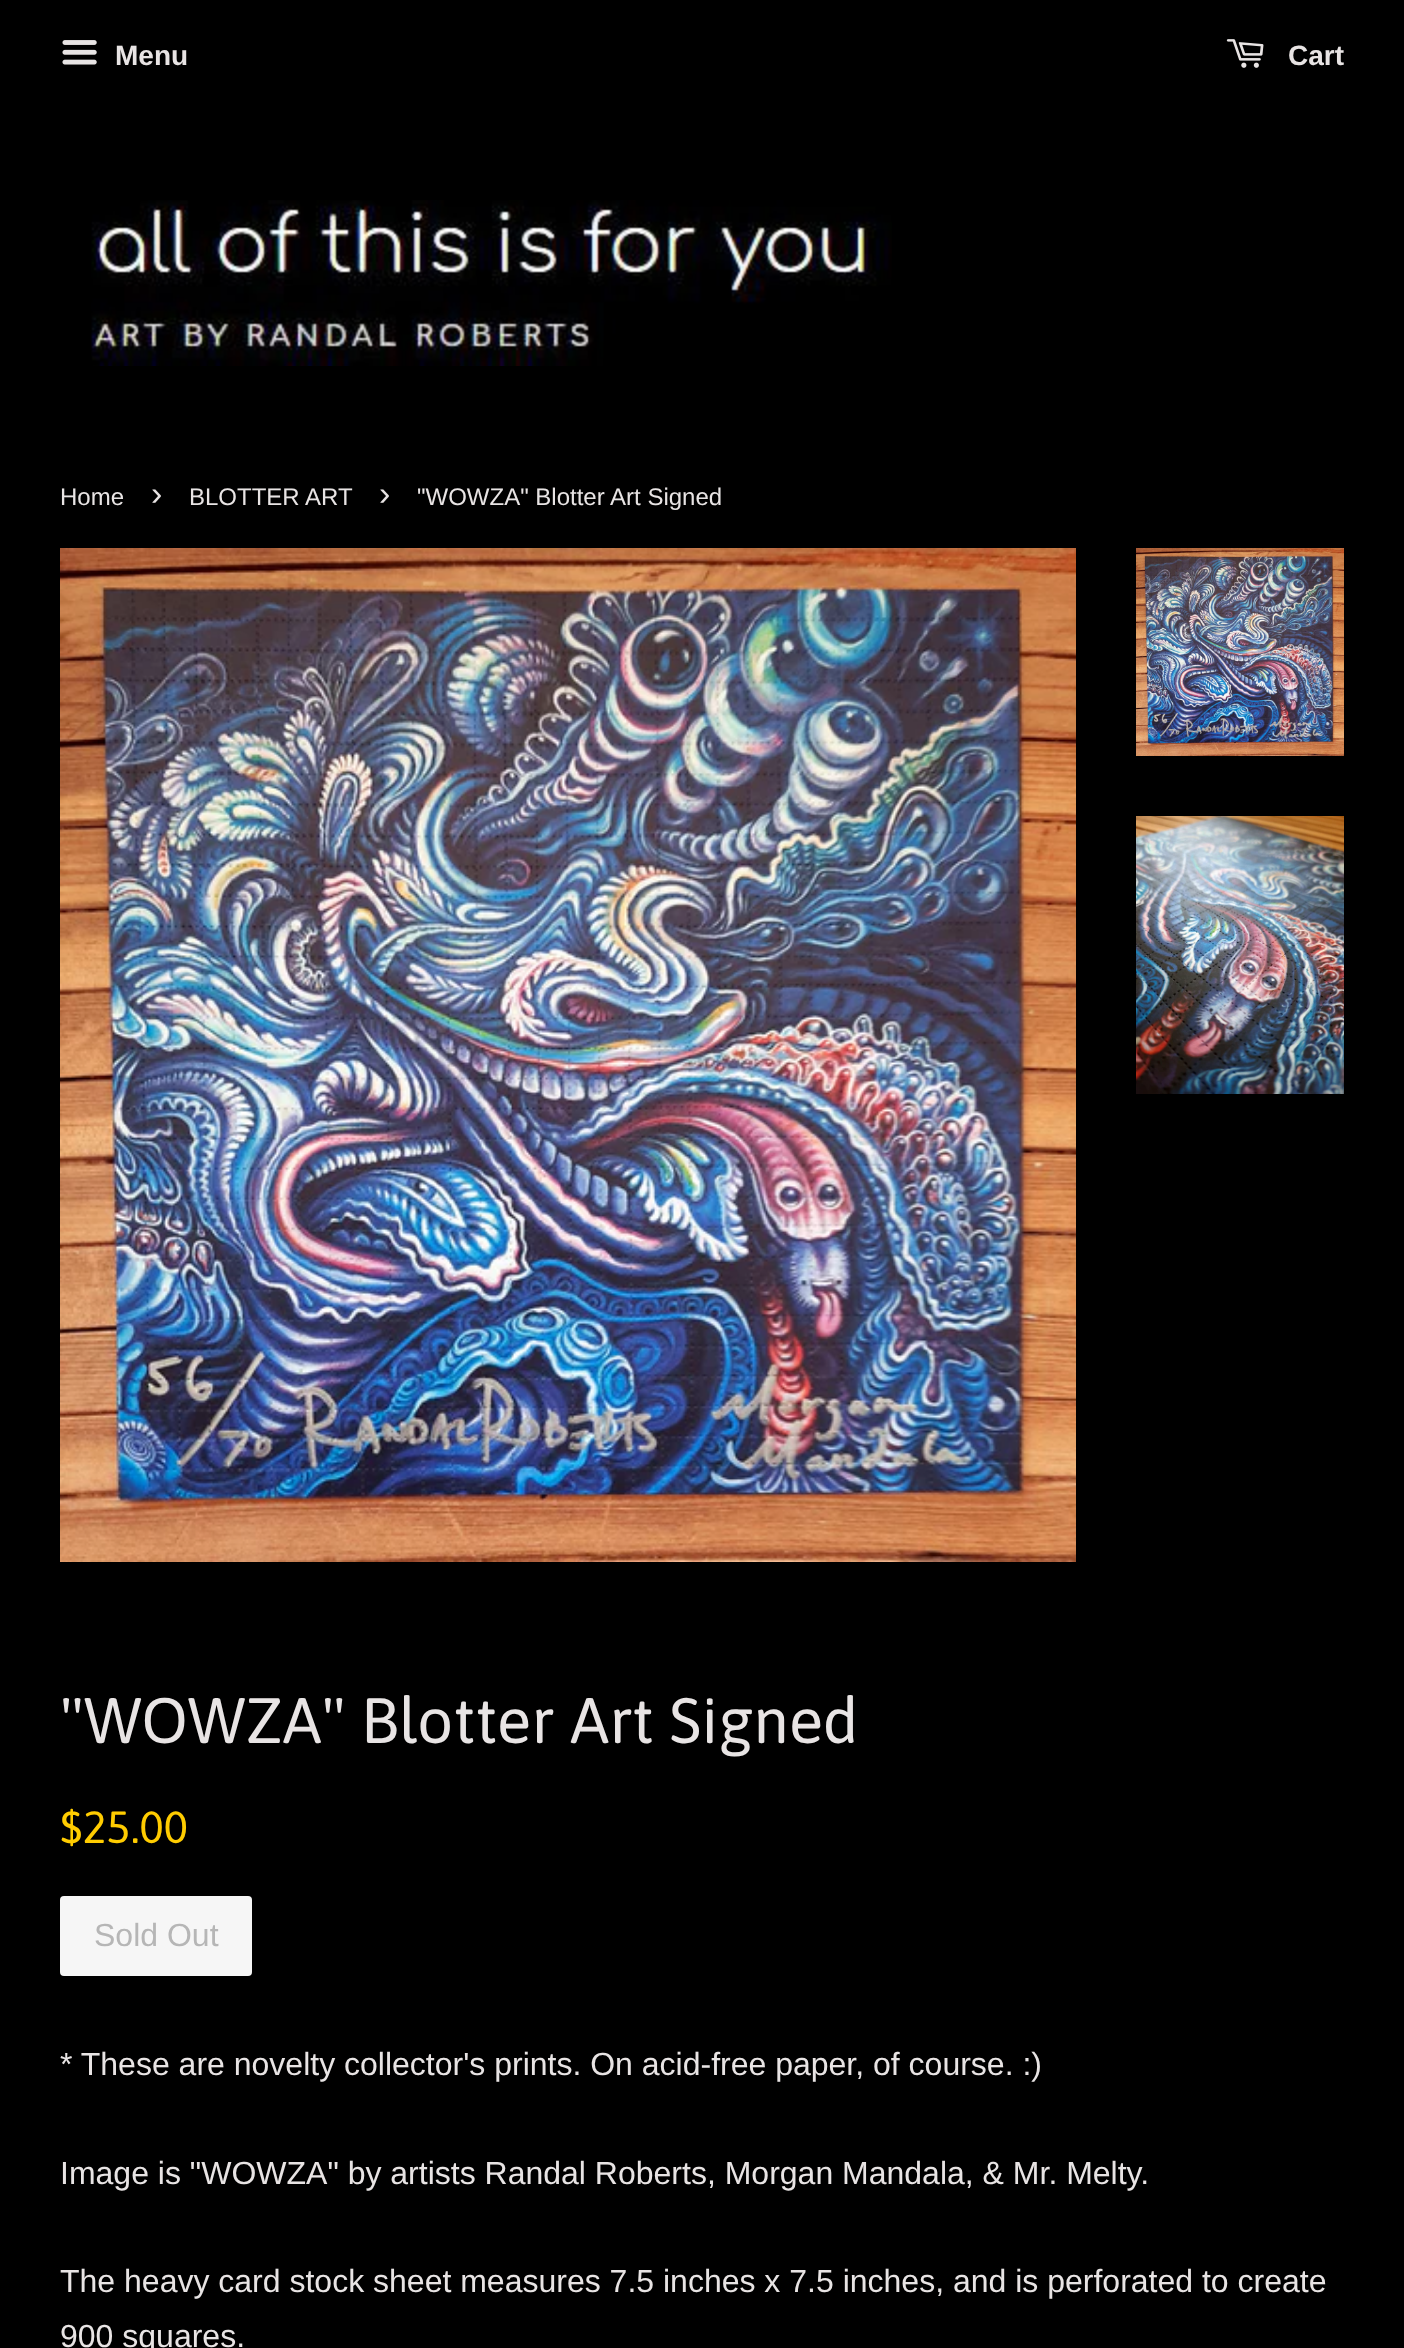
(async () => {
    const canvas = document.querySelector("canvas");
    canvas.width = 1404;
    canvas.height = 2348;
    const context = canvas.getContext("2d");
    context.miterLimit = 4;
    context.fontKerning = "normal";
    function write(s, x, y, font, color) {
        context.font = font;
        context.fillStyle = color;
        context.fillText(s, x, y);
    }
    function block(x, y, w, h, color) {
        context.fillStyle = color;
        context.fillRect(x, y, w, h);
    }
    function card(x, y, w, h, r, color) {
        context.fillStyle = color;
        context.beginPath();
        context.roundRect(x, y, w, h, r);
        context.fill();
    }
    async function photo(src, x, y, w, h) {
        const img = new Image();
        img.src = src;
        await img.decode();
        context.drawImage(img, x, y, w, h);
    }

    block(0, 0, 1404, 2348, "rgb(0, 0, 0)");
    await photo("media/1.png", 62, 40, 35, 25);
    write("Menu", 115, 65, "bold 28px Liberation Sans", "rgb(232, 228, 228)");
    await photo("media/2.png", 1226, 39, 38, 29);
    write("Cart", 1288, 65, "bold 28px Liberation Sans", "rgb(232, 228, 228)");
    await photo("media/3.png", 91, 200, 801, 166);
    write("Home", 60, 505, "24px Liberation Sans", "rgb(232, 228, 228)");
    write("›", 151, 505, "34px Liberation Sans", "rgb(232, 228, 228)");
    write("BLOTTER ART", 189, 505, "24px Liberation Sans", "rgb(232, 228, 228)");
    write("›", 379, 505, "34px Liberation Sans", "rgb(232, 228, 228)");
    write("\"WOWZA\" Blotter Art Signed", 417, 505, "24px Liberation Sans", "rgb(232, 228, 228)");
    await photo("media/4.png", 60, 548, 1016, 1014);
    await photo("media/5.png", 1136, 548, 208, 208);
    await photo("media/6.png", 1136, 816, 208, 278);
    write("\"WOWZA\" Blotter Art Signed", 60, 1743, "64px Asap", "rgb(232, 228, 228)");
    write("$25.00", 60, 1843, "45px Asap", "rgb(255, 204, 0)");
    card(60, 1896, 192, 80, 4, "rgb(246, 246, 246)");
    write("Sold Out", 94, 1946, "32px Liberation Sans", "rgb(182, 182, 182)");
    write("* These are novelty collector's prints. On acid-free paper, of course. :)", 60, 2075, "32px Liberation Sans", "rgb(232, 228, 228)");
    write("Image is \"WOWZA\" by artists Randal Roberts, Morgan Mandala, & Mr. Melty.", 60, 2184, "32px Liberation Sans", "rgb(232, 228, 228)");
    write("The heavy card stock sheet measures 7.5 inches x 7.5 inches, and is perforated to create", 60, 2292, "32px Liberation Sans", "rgb(232, 228, 228)");
    write("900 squares.", 60, 2347, "32px Liberation Sans", "rgb(232, 228, 228)");
})();
